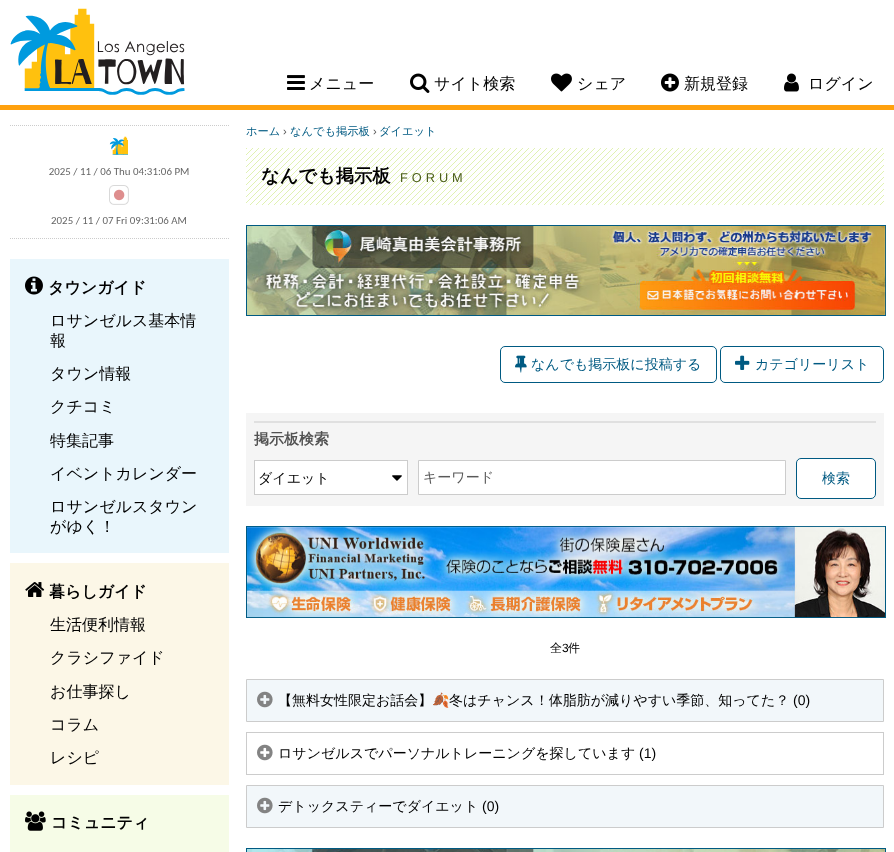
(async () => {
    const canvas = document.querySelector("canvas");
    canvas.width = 894;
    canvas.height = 852;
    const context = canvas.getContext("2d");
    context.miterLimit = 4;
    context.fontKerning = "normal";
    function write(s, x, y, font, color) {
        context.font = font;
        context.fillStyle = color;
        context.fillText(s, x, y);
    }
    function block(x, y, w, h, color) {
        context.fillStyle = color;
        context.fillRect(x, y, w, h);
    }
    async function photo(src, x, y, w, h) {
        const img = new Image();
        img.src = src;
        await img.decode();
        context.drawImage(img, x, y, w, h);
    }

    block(0, 0, 894, 852, "rgb(255, 255, 255)");
    block(0, 105, 894, 5, "rgb(255, 161, 14)");
    await photo("media/1.png", 10, 8, 175, 87);
    await photo("media/2.png", 287, 75, 18, 15);
    write("メニュー", 309, 89, "500 16px WenQuanYi Zen Hei", "rgb(0, 0, 0)");
    await photo("media/3.png", 410, 73, 20, 20);
    write("サイト検索", 434, 89, "500 16px WenQuanYi Zen Hei", "rgb(0, 0, 0)");
    await photo("media/4.png", 551, 73, 21, 19);
    write("シェア", 577, 89, "500 16px WenQuanYi Zen Hei", "rgb(0, 0, 0)");
    await photo("media/5.png", 661, 73, 18, 19);
    write("新規登録", 684, 89, "500 16px WenQuanYi Zen Hei", "rgb(0, 0, 0)");
    await photo("media/6.png", 784, 73, 15, 19);
    write("ログイン", 808, 89, "500 16px WenQuanYi Zen Hei", "rgb(0, 0, 0)");
    context.beginPath();
    context.moveTo(10, 125.5);
    context.lineTo(229, 125.5);
    context.strokeStyle = "rgb(204, 204, 204)";
    context.setLineDash([1, 1]);
    context.stroke();
    context.beginPath();
    context.moveTo(10, 238.5);
    context.lineTo(229, 238.5);
    context.stroke();
    await photo("media/7.png", 109, 136, 19, 19);
    await photo("media/8.png", 49, 168, 140, 8);
    await photo("media/9.png", 109, 185, 20, 20);
    await photo("media/10.png", 51, 217, 135, 8);
    block(10, 259, 219, 294, "rgb(233, 246, 252)");
    await photo("media/11.png", 25, 276, 18, 19);
    write("タウンガイド", 48, 293, "bold 16px WenQuanYi Zen Hei", "rgb(0, 0, 0)");
    write("ロサンゼルス基本情", 50, 326, "500 16px WenQuanYi Zen Hei", "rgb(0, 0, 0)");
    write("報", 50, 346, "500 16px WenQuanYi Zen Hei", "rgb(0, 0, 0)");
    write("タウン情報", 50, 379, "500 16px WenQuanYi Zen Hei", "rgb(0, 0, 0)");
    write("クチコミ", 50, 412, "500 16px WenQuanYi Zen Hei", "rgb(0, 0, 0)");
    write("特集記事", 50, 446, "500 16px WenQuanYi Zen Hei", "rgb(0, 0, 0)");
    write("イベントカレンダー", 50, 479, "500 16px WenQuanYi Zen Hei", "rgb(0, 0, 0)");
    write("ロサンゼルスタウン", 50, 512, "500 16px WenQuanYi Zen Hei", "rgb(0, 0, 0)");
    write("がゆく！", 50, 532, "500 16px WenQuanYi Zen Hei", "rgb(0, 0, 0)");
    block(10, 563, 219, 222, "rgb(252, 247, 231)");
    await photo("media/12.png", 25, 582, 20, 15);
    write("暮らしガイド", 49, 597, "bold 16px WenQuanYi Zen Hei", "rgb(0, 0, 0)");
    write("生活便利情報", 50, 630, "500 16px WenQuanYi Zen Hei", "rgb(0, 0, 0)");
    write("クラシファイド", 50, 663, "500 16px WenQuanYi Zen Hei", "rgb(0, 0, 0)");
    write("お仕事探し", 50, 697, "500 16px WenQuanYi Zen Hei", "rgb(0, 0, 0)");
    write("コラム", 50, 730, "500 16px WenQuanYi Zen Hei", "rgb(0, 0, 0)");
    write("レシピ", 50, 763, "500 16px WenQuanYi Zen Hei", "rgb(0, 0, 0)");
    block(10, 795, 219, 57, "rgb(246, 252, 231)");
    await photo("media/13.png", 25, 811, 21, 20);
    write("コミュニティ", 51, 828, "bold 16px WenQuanYi Zen Hei", "rgb(0, 0, 0)");
    write("ホーム", 246, 135, "500 11.25px WenQuanYi Zen Hei", "rgb(0, 90, 130)");
    write("›", 283, 135, "11.25px Liberation Sans", "rgb(89, 89, 89)");
    write("なんでも掲示板", 290, 135, "500 11.25px WenQuanYi Zen Hei", "rgb(0, 90, 130)");
    write("›", 373, 135, "11.25px Liberation Sans", "rgb(89, 89, 89)");
    write("ダイエット", 379, 135, "500 11.25px WenQuanYi Zen Hei", "rgb(0, 90, 130)");
    await photo("media/14.png", 246, 148, 638, 57);
    write("なんでも掲示板", 261, 182, "bold 18.25px WenQuanYi Zen Hei", "rgb(0, 0, 0)");
    context.letterSpacing = "4px";
    write("FORUM", 400, 182, "12.75px Liberation Sans", "rgb(74, 93, 24)");
    context.strokeStyle = "rgb(0, 90, 130)";
    context.setLineDash([]);
    context.strokeRect(246.5, 225.5, 639, 90);
    await photo("media/15.png", 247, 226, 639, 89);
    context.beginPath();
    context.roundRect(500.5, 346.5, 216, 36, 4.5);
    context.stroke();
    await photo("media/16.png", 515, 355, 12, 18);
    context.letterSpacing = "0px";
    write("なんでも掲示板に投稿する", 531, 369, "500 14px WenQuanYi Zen Hei", "rgb(0, 90, 130)");
    context.beginPath();
    context.roundRect(720.5, 346.5, 163, 36, 4.5);
    context.stroke();
    await photo("media/17.png", 735, 355, 15, 15);
    write("カテゴリーリスト", 755, 369, "500 14px WenQuanYi Zen Hei", "rgb(0, 90, 130)");
    block(246, 413, 638, 93, "rgb(245, 245, 245)");
    block(254, 421, 622, 2, "rgb(224, 224, 224)");
    write("掲示板検索", 254, 444, "bold 15px WenQuanYi Zen Hei", "rgb(82, 82, 82)");
    block(255, 461, 152, 33, "rgb(255, 255, 255)");
    await photo("media/18.png", 392, 475, 10, 6);
    context.strokeStyle = "rgb(204, 204, 204)";
    context.strokeRect(254.5, 460.5, 153, 34);
    write("ダイエット", 258, 483, "500 14px WenQuanYi Zen Hei", "rgb(0, 0, 0)");
    context.fillStyle = "rgb(255, 255, 255)";
    context.beginPath();
    context.rect(418.5, 460.5, 367, 34);
    context.fill();
    context.stroke();
    write("キーワード", 423, 482, "500 14px WenQuanYi Zen Hei", "rgb(89, 89, 89)");
    context.fillStyle = "rgb(255, 255, 255)";
    context.beginPath();
    context.roundRect(796.5, 458.5, 79, 40, 4.5);
    context.fill();
    context.strokeStyle = "rgb(0, 90, 130)";
    context.stroke();
    write("検索", 822, 483, "500 14px WenQuanYi Zen Hei", "rgb(0, 90, 130)");
    context.strokeRect(246.5, 526.5, 639, 91);
    await photo("media/19.png", 247, 526, 638, 92);
    write("全", 550, 652, "500 12px WenQuanYi Zen Hei", "rgb(0, 0, 0)");
    write("3", 562, 652, "12px Liberation Sans", "rgb(0, 0, 0)");
    write("件", 568, 652, "500 12px WenQuanYi Zen Hei", "rgb(0, 0, 0)");
    context.fillStyle = "rgb(242, 247, 250)";
    context.beginPath();
    context.rect(246.5, 679.5, 637, 42);
    context.fill();
    context.strokeStyle = "rgb(204, 204, 204)";
    context.stroke();
    await photo("media/20.png", 257, 691, 16, 17);
    write("【無料女性限定お話会】", 278, 705, "500 14px WenQuanYi Zen Hei", "rgb(0, 0, 0)");
    write("🍂", 432, 705, "14px Noto Color Emoji", "rgb(0, 0, 0)");
    write("冬はチャンス！体脂肪が減りやすい季節、知ってた？", 449, 705, "500 14px WenQuanYi Zen Hei", "rgb(0, 0, 0)");
    write("(0)", 793, 705, "14px Liberation Sans", "rgb(0, 0, 0)");
    context.strokeRect(246.5, 732.5, 637, 42);
    await photo("media/21.png", 257, 744, 16, 17);
    write("ロサンゼルスでパーソナルトレーニングを探しています", 278, 758, "500 14px WenQuanYi Zen Hei", "rgb(0, 0, 0)");
    write("(1)", 639, 758, "14px Liberation Sans", "rgb(0, 0, 0)");
    context.fillStyle = "rgb(242, 247, 250)";
    context.beginPath();
    context.rect(246.5, 785.5, 637, 42);
    context.fill();
    context.stroke();
    await photo("media/20.png", 257, 797, 16, 17);
    write("デトックスティーでダイエット", 278, 811, "500 14px WenQuanYi Zen Hei", "rgb(0, 0, 0)");
    write("(0)", 482, 811, "14px Liberation Sans", "rgb(0, 0, 0)");
    context.strokeStyle = "rgb(0, 90, 130)";
    context.strokeRect(246.5, 848.5, 639, 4);
    await photo("media/22.png", 247, 849, 638, 3);
})();
